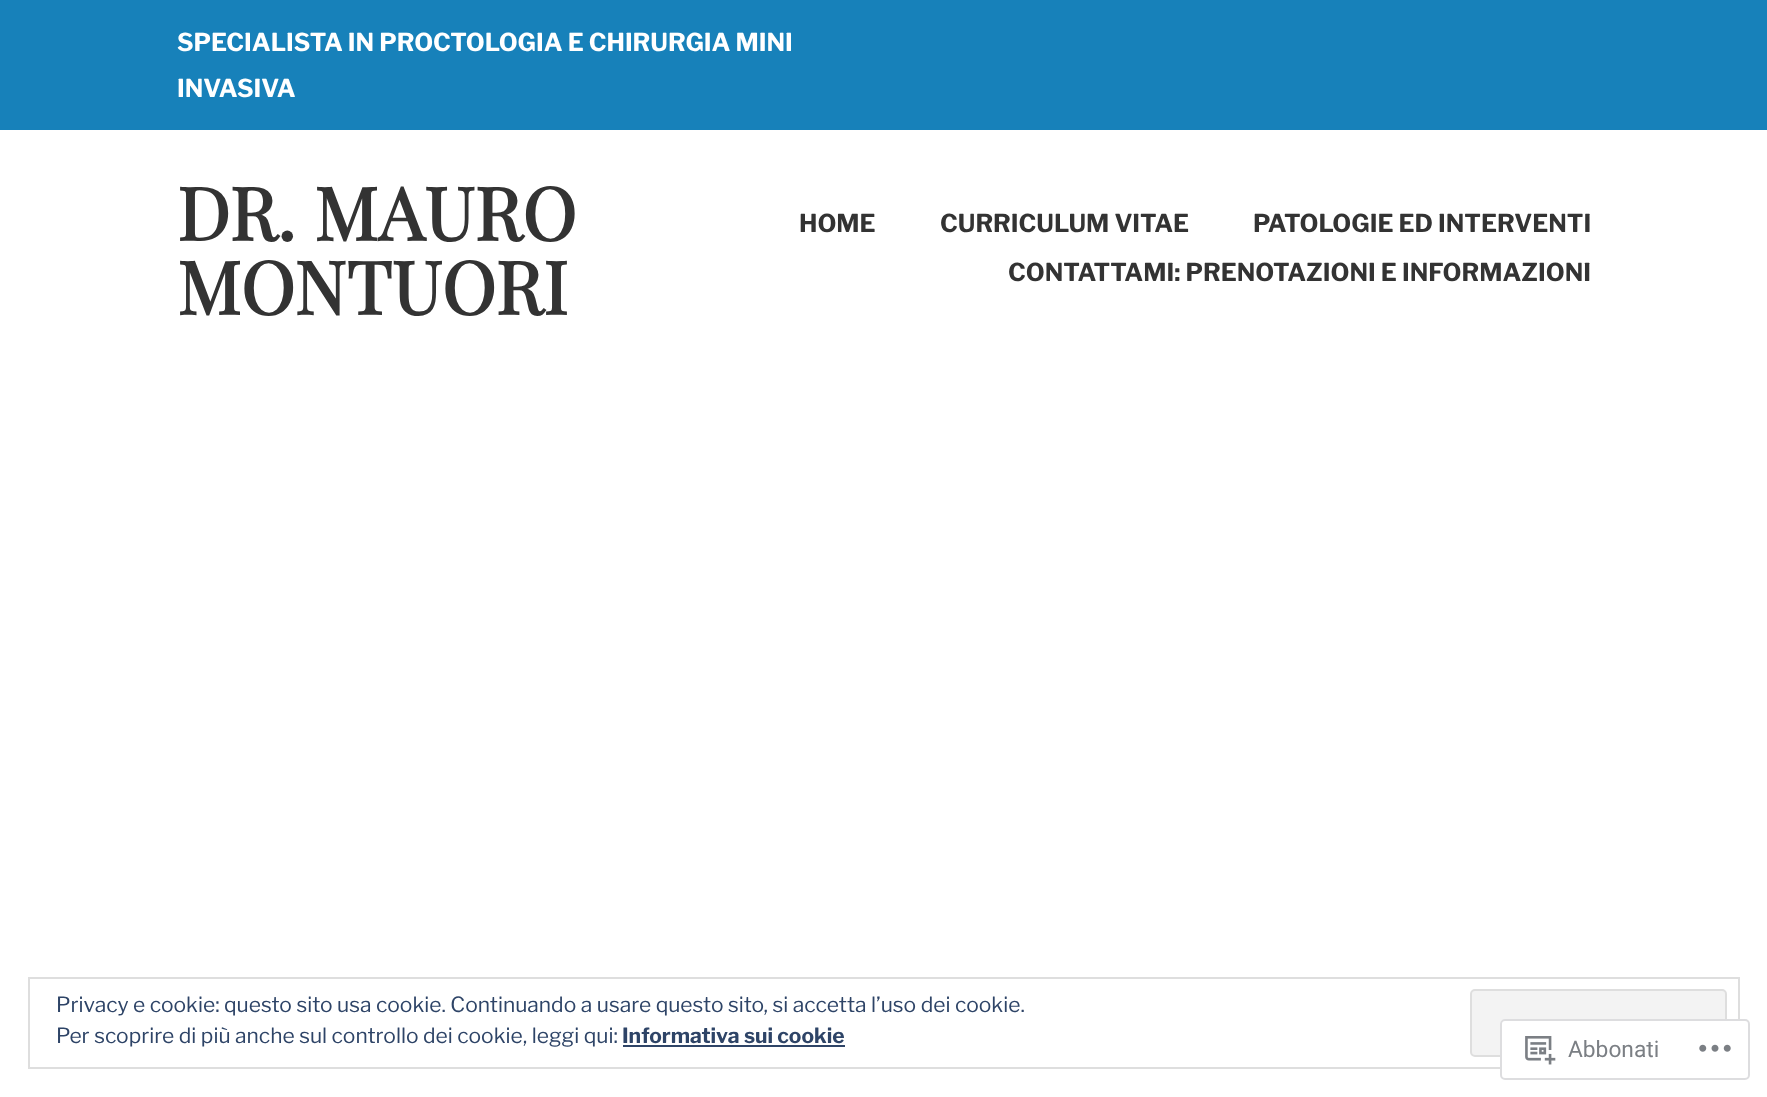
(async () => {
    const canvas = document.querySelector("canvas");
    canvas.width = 1767;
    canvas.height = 1097;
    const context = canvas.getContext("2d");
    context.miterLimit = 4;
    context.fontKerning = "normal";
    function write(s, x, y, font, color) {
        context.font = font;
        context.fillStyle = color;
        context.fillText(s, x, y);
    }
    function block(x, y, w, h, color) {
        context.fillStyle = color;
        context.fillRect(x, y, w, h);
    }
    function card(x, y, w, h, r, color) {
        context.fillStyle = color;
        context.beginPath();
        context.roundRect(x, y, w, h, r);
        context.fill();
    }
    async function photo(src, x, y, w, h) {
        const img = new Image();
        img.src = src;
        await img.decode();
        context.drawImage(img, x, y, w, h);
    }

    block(0, 0, 1767, 1097, "rgb(255, 255, 255)");
    block(0, 0, 1767, 130, "rgb(23, 129, 186)");
    write("SPECIALISTA IN PROCTOLOGIA E CHIRURGIA MINI", 177, 51, "bold 24.5px Libre Franklin", "rgb(255, 255, 255)");
    write("INVASIVA", 177, 97, "bold 24.5px Libre Franklin", "rgb(255, 255, 255)");
    write("DR. MAURO", 177, 241, "bold 73.5px Playfair Display", "rgb(51, 51, 51)");
    write("MONTUORI", 177, 315, "bold 73.5px Playfair Display", "rgb(51, 51, 51)");
    write("HOME", 799, 232, "bold 24.5px Libre Franklin", "rgb(51, 51, 51)");
    write("CURRICULUM VITAE", 940, 232, "bold 24.5px Libre Franklin", "rgb(51, 51, 51)");
    write("PATOLOGIE ED INTERVENTI", 1253, 232, "bold 24.5px Libre Franklin", "rgb(51, 51, 51)");
    write("CONTATTAMI: PRENOTAZIONI E INFORMAZIONI", 1008, 281, "bold 24.5px Libre Franklin", "rgb(51, 51, 51)");
    context.strokeStyle = "rgb(222, 222, 222)";
    context.lineWidth = 2;
    context.strokeRect(29, 978, 1710, 90);
    write("Privacy e cookie: questo sito usa cookie. Continuando a usare questo sito, si accetta l’uso dei cookie.", 56, 1012, "21px Libre Franklin", "rgb(46, 68, 103)");
    context.fillStyle = "rgb(243, 243, 243)";
    context.beginPath();
    context.roundRect(1471, 990, 255, 66, 4);
    context.fill();
    context.stroke();
    write("Per scoprire di più anche sul controllo dei cookie, leggi qui:", 56, 1043, "21px Libre Franklin", "rgb(46, 68, 103)");
    write("Informativa sui cookie", 622, 1043, "bold 21px Libre Franklin", "rgb(46, 68, 103)");
    block(623, 1045, 222, 2, "rgb(46, 68, 103)");
    card(1500, 1019, 250, 61, 5, "rgba(255, 255, 255, 0.98)");
    context.beginPath();
    context.roundRect(1501, 1020, 248, 59, 4);
    context.strokeStyle = "rgba(220, 220, 222, 0.98)";
    context.stroke();
    await photo("media/1.png", 1525, 1036, 31, 29);
    write("Abbonati", 1568, 1057, "22.75px Roboto", "rgb(123, 127, 132)");
    await photo("media/2.png", 1699, 1044, 32, 8);
})();
